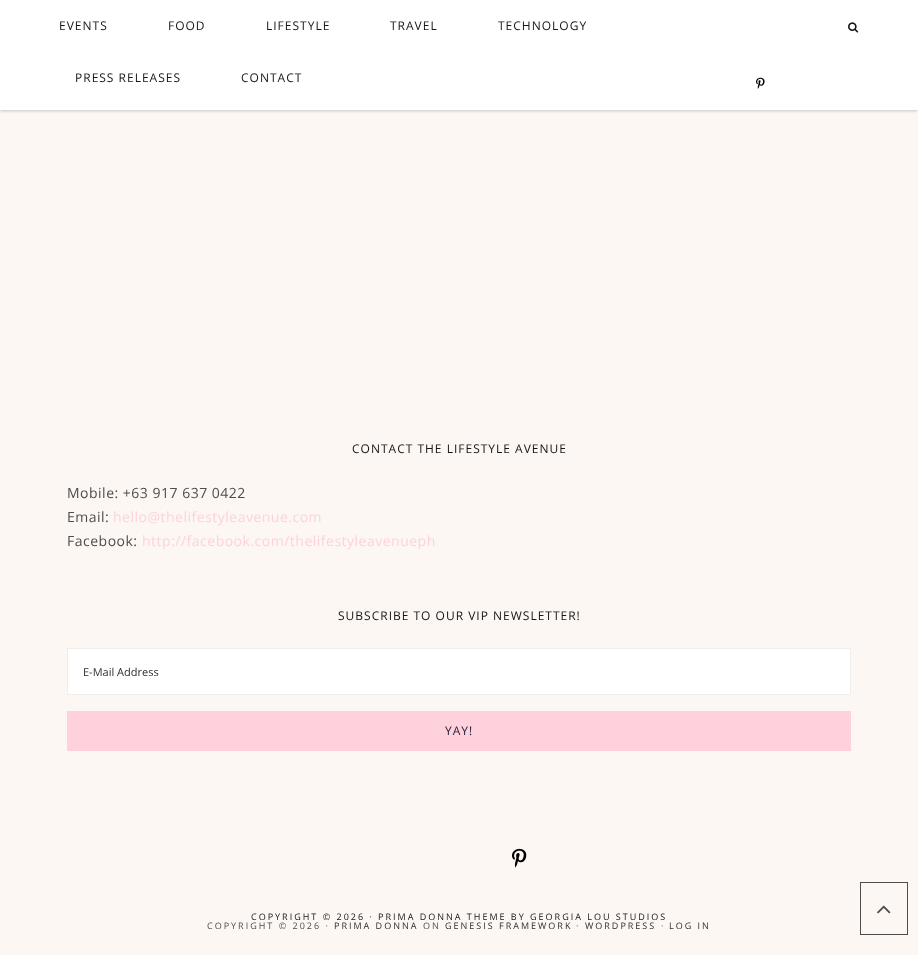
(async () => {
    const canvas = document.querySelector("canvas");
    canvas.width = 918;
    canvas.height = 955;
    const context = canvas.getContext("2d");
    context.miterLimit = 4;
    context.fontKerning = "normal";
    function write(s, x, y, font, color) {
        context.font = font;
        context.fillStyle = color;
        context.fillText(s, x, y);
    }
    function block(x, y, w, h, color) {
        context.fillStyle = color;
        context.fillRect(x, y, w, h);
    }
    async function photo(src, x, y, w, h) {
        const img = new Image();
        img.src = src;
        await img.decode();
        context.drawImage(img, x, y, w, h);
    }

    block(0, 0, 918, 955, "rgb(252, 247, 243)");
    context.fillStyle = "rgba(0, 0, 0, 0.2)";
    context.filter = "blur(1.5px)";
    context.beginPath();
    context.rect(0, 1, 918, 110);
    context.fill();
    context.filter = "none";
    block(0, 0, 918, 110, "rgb(255, 255, 255)");
    context.letterSpacing = "1px";
    write("EVENTS", 59, 30, "12px Open Sans", "rgb(22, 22, 22)");
    write("FOOD", 168, 30, "12px Open Sans", "rgb(22, 22, 22)");
    write("LIFESTYLE", 266, 30, "12px Open Sans", "rgb(22, 22, 22)");
    write("TRAVEL", 390, 30, "12px Open Sans", "rgb(22, 22, 22)");
    write("TECHNOLOGY", 498, 30, "12px Open Sans", "rgb(22, 22, 22)");
    write("PRESS RELEASES", 75, 82, "12px Open Sans", "rgb(22, 22, 22)");
    write("CONTACT", 241, 82, "12px Open Sans", "rgb(22, 22, 22)");
    await photo("media/1.png", 848, 22, 11, 11);
    await photo("media/2.png", 756, 77, 9, 12);
    write("CONTACT THE LIFESTYLE AVENUE", 352, 453, "12px Open Sans", "rgb(22, 22, 22)");
    context.letterSpacing = "0.5px";
    write("Mobile: +63 917 637 0422", 67, 498, "14px Open Sans", "rgb(78, 77, 76)");
    write("Email:", 67, 522, "14px Open Sans", "rgb(78, 77, 76)");
    write("hello@thelifestyleavenue.com", 113, 522, "14px Open Sans", "rgb(255, 209, 220)");
    write("Facebook:", 67, 546, "14px Open Sans", "rgb(78, 77, 76)");
    write("http://facebook.com/thelifestyleavenueph", 142, 546, "14px Open Sans", "rgb(255, 209, 220)");
    context.letterSpacing = "1px";
    write("SUBSCRIBE TO OUR VIP NEWSLETTER!", 338, 620, "12px Open Sans", "rgb(22, 22, 22)");
    context.fillStyle = "rgb(255, 255, 255)";
    context.beginPath();
    context.rect(67.5, 648.5, 783, 46);
    context.fill();
    context.strokeStyle = "rgb(238, 238, 238)";
    context.stroke();
    context.letterSpacing = "0px";
    write("E-Mail Address", 83, 676, "11px Open Sans", "rgb(48, 43, 43)");
    block(67, 711, 784, 40, "rgb(255, 209, 220)");
    context.letterSpacing = "1px";
    write("YAY!", 445, 735, "12px Open Sans", "rgb(34, 33, 63)");
    await photo("media/3.png", 512, 848, 15, 20);
    context.letterSpacing = "2px";
    write("COPYRIGHT © 2026 · PRIMA DONNA THEME BY GEORGIA LOU STUDIOS", 251, 920, "9px Open Sans", "rgb(22, 22, 22)");
    write("COPYRIGHT © 2026 ·", 207, 929, "9px Open Sans", "rgb(78, 77, 76)");
    write("PRIMA DONNA", 334, 929, "9px Open Sans", "rgb(48, 43, 43)");
    write("ON", 423, 929, "9px Open Sans", "rgb(78, 77, 76)");
    write("GENESIS FRAMEWORK", 445, 929, "9px Open Sans", "rgb(48, 43, 43)");
    write("·", 576, 929, "9px Open Sans", "rgb(78, 77, 76)");
    write("WORDPRESS", 585, 929, "9px Open Sans", "rgb(48, 43, 43)");
    write("·", 661, 929, "9px Open Sans", "rgb(78, 77, 76)");
    write("LOG IN", 669, 929, "9px Open Sans", "rgb(48, 43, 43)");
    context.strokeStyle = "rgb(78, 77, 76)";
    context.strokeRect(860.5, 882.5, 47, 52);
    await photo("media/4.png", 877, 905, 14, 9);
})();
